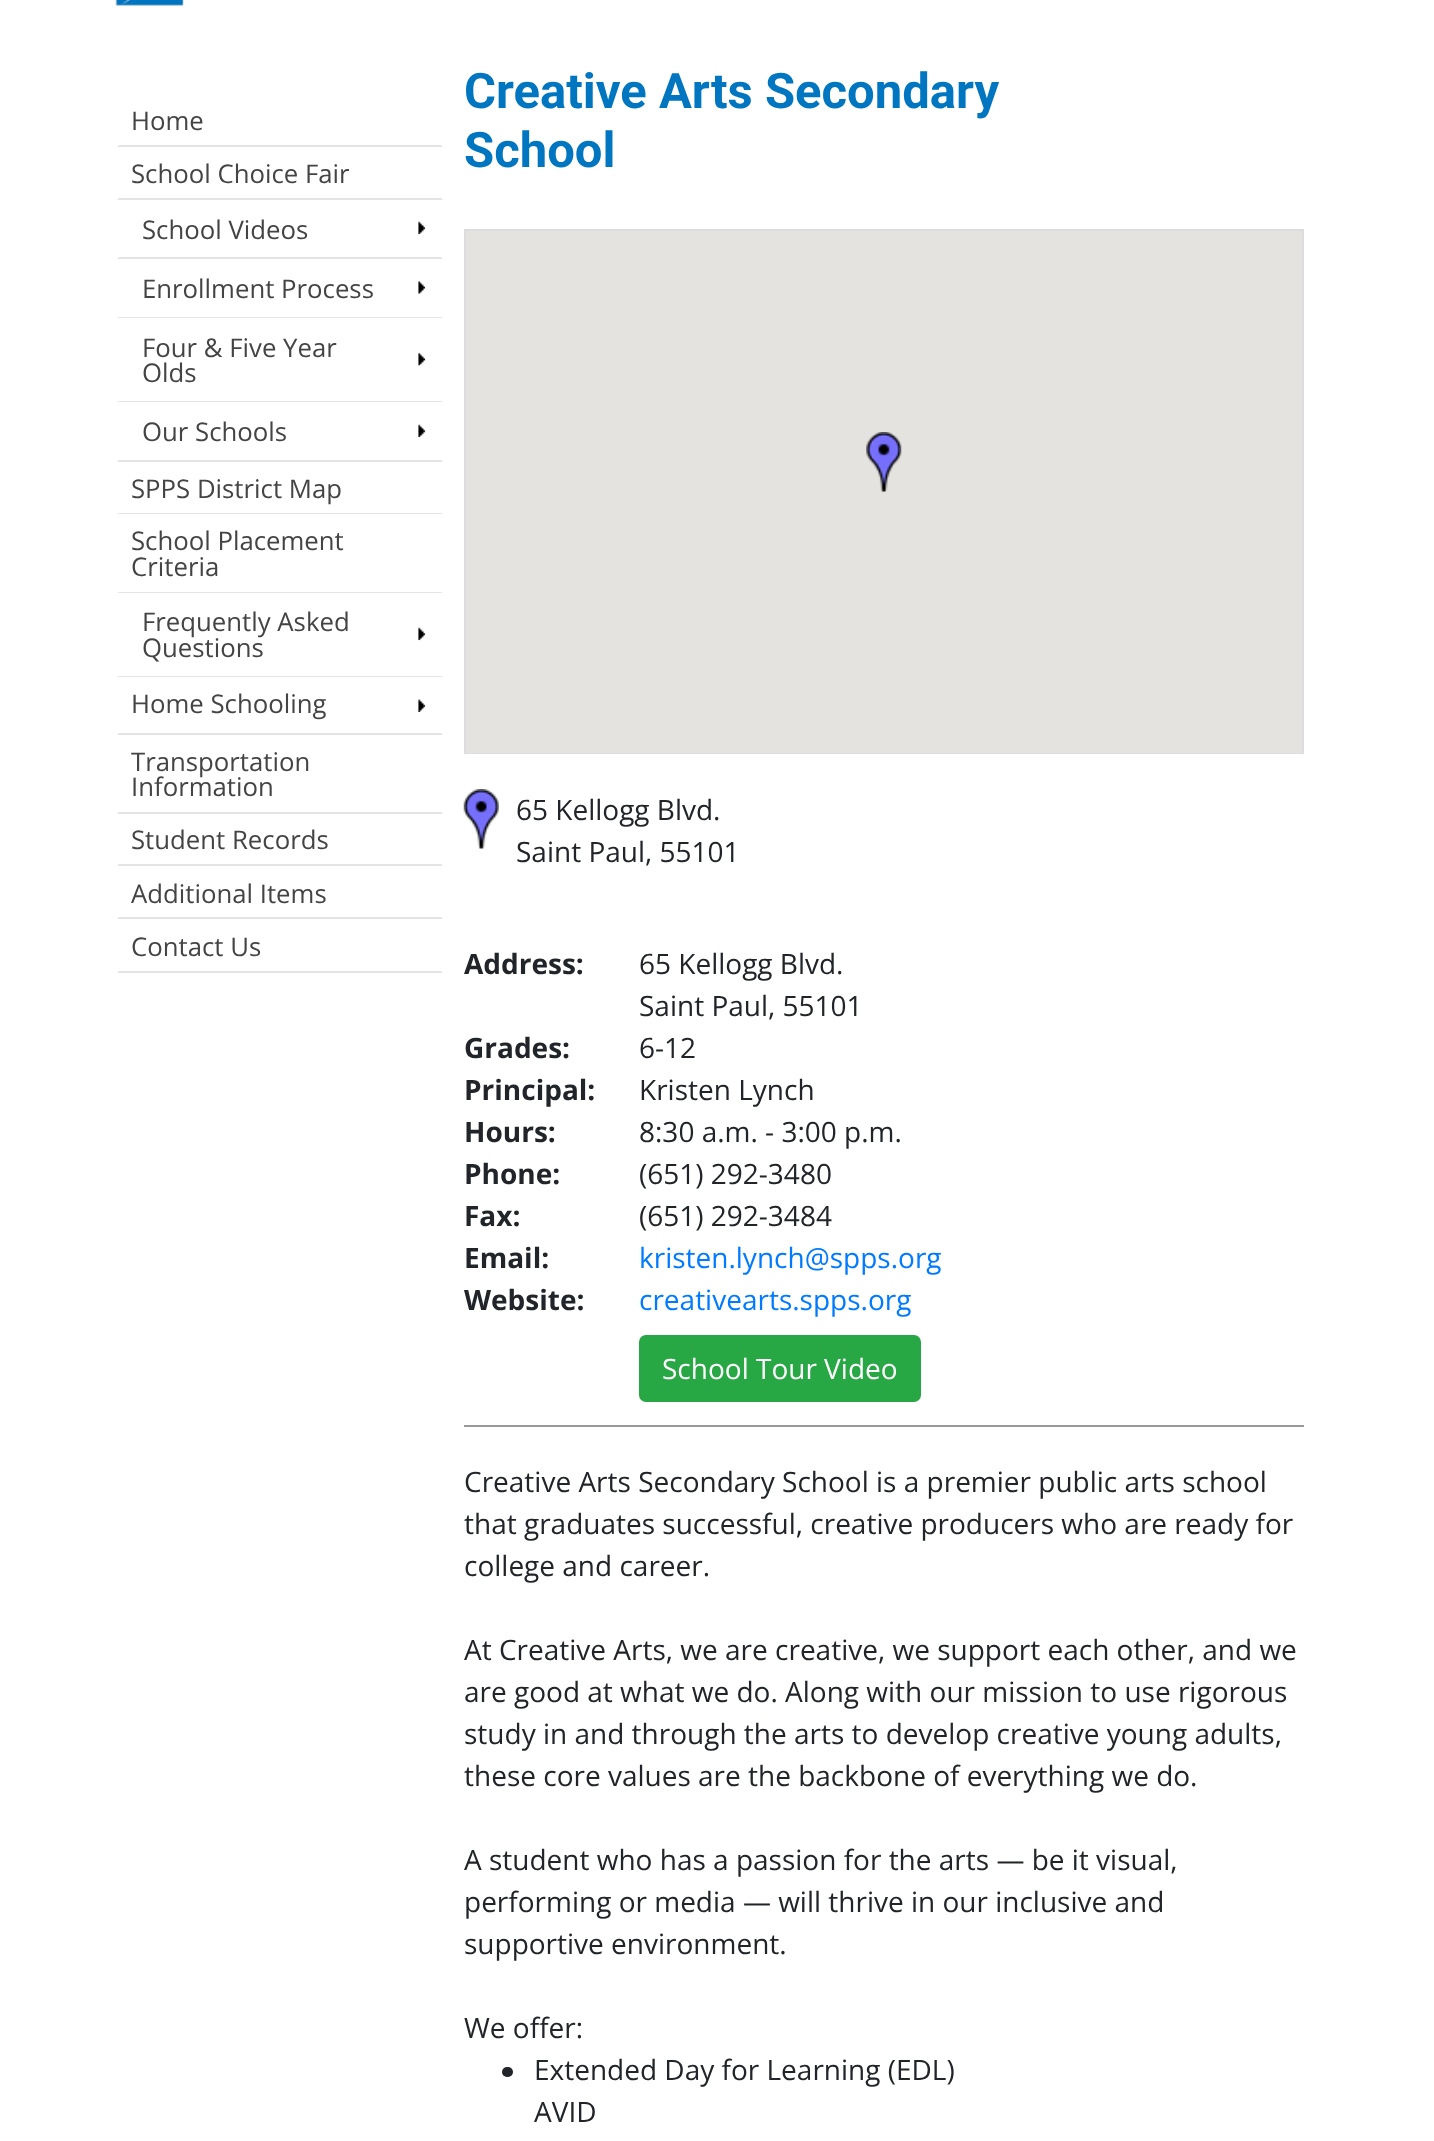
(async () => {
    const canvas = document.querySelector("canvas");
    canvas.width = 1434;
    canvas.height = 2141;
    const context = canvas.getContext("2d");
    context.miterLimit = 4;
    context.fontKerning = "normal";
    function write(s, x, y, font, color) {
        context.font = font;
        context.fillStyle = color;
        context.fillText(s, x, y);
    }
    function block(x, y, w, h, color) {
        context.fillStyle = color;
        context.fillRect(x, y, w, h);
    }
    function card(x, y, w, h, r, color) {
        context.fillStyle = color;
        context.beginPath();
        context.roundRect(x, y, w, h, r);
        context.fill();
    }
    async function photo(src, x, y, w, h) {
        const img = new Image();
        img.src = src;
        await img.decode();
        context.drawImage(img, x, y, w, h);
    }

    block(0, 0, 1434, 2141, "rgb(255, 255, 255)");
    await photo("media/1.png", 115, 0, 69, 6);
    context.fillStyle = "rgb(228, 228, 228)";
    context.beginPath();
    context.moveTo(443, 147);
    context.lineTo(117, 147);
    context.lineTo(119, 145);
    context.lineTo(441, 145);
    context.closePath();
    context.fill();
    write("Home", 131, 130, "25.75px Open Sans", "rgb(68, 68, 68)");
    context.fillStyle = "rgb(228, 228, 228)";
    context.beginPath();
    context.moveTo(443, 200);
    context.lineTo(117, 200);
    context.lineTo(119, 198);
    context.lineTo(441, 198);
    context.closePath();
    context.fill();
    write("School Choice Fair", 131, 183, "25.75px Open Sans", "rgb(68, 68, 68)");
    context.fillStyle = "rgb(228, 228, 228)";
    context.beginPath();
    context.moveTo(443, 259);
    context.lineTo(117, 259);
    context.lineTo(119, 257);
    context.lineTo(441, 257);
    context.closePath();
    context.fill();
    write("School Videos", 142, 239, "25.75px Open Sans", "rgb(68, 68, 68)");
    await photo("media/2.png", 418, 221, 8, 14);
    context.fillStyle = "rgb(228, 228, 228)";
    context.beginPath();
    context.moveTo(443, 318);
    context.lineTo(117, 318);
    context.lineTo(119, 317);
    context.lineTo(441, 317);
    context.closePath();
    context.fill();
    write("Enrollment Process", 142, 298, "25.75px Open Sans", "rgb(68, 68, 68)");
    await photo("media/3.png", 418, 281, 8, 13);
    context.fillStyle = "rgb(228, 228, 228)";
    context.beginPath();
    context.moveTo(443, 402);
    context.lineTo(117, 402);
    context.lineTo(119, 401);
    context.lineTo(441, 401);
    context.closePath();
    context.fill();
    write("Four & Five Year", 142, 357, "25.75px Open Sans", "rgb(68, 68, 68)");
    write("Olds", 142, 382, "25.75px Open Sans", "rgb(68, 68, 68)");
    await photo("media/4.png", 418, 352, 8, 14);
    context.fillStyle = "rgb(228, 228, 228)";
    context.beginPath();
    context.moveTo(443, 462);
    context.lineTo(117, 462);
    context.lineTo(119, 460);
    context.lineTo(441, 460);
    context.closePath();
    context.fill();
    write("Our Schools", 142, 441, "25.75px Open Sans", "rgb(68, 68, 68)");
    await photo("media/2.png", 418, 424, 8, 14);
    context.fillStyle = "rgb(228, 228, 228)";
    context.beginPath();
    context.moveTo(443, 514);
    context.lineTo(117, 514);
    context.lineTo(119, 513);
    context.lineTo(441, 513);
    context.closePath();
    context.fill();
    write("SPPS District Map", 131, 498, "25.75px Open Sans", "rgb(68, 68, 68)");
    context.fillStyle = "rgb(228, 228, 228)";
    context.beginPath();
    context.moveTo(443, 593);
    context.lineTo(117, 593);
    context.lineTo(119, 592);
    context.lineTo(441, 592);
    context.closePath();
    context.fill();
    write("School Placement", 131, 550, "25.75px Open Sans", "rgb(68, 68, 68)");
    write("Criteria", 131, 576, "25.75px Open Sans", "rgb(68, 68, 68)");
    context.fillStyle = "rgb(228, 228, 228)";
    context.beginPath();
    context.moveTo(443, 677);
    context.lineTo(117, 677);
    context.lineTo(119, 676);
    context.lineTo(441, 676);
    context.closePath();
    context.fill();
    write("Frequently Asked", 142, 631, "25.75px Open Sans", "rgb(68, 68, 68)");
    write("Questions", 142, 657, "25.75px Open Sans", "rgb(68, 68, 68)");
    await photo("media/2.png", 418, 627, 8, 14);
    context.fillStyle = "rgb(228, 228, 228)";
    context.beginPath();
    context.moveTo(443, 735);
    context.lineTo(117, 735);
    context.lineTo(119, 733);
    context.lineTo(441, 733);
    context.closePath();
    context.fill();
    write("Home Schooling", 131, 713, "25.75px Open Sans", "rgb(68, 68, 68)");
    await photo("media/5.png", 418, 699, 8, 13);
    context.fillStyle = "rgb(228, 228, 228)";
    context.beginPath();
    context.moveTo(443, 814);
    context.lineTo(117, 814);
    context.lineTo(119, 812);
    context.lineTo(441, 812);
    context.closePath();
    context.fill();
    write("Transportation", 131, 771, "25.75px Open Sans", "rgb(68, 68, 68)");
    write("Information", 131, 796, "25.75px Open Sans", "rgb(68, 68, 68)");
    context.fillStyle = "rgb(228, 228, 228)";
    context.beginPath();
    context.moveTo(443, 866);
    context.lineTo(117, 866);
    context.lineTo(119, 864);
    context.lineTo(441, 864);
    context.closePath();
    context.fill();
    write("Student Records", 131, 849, "25.75px Open Sans", "rgb(68, 68, 68)");
    context.fillStyle = "rgb(228, 228, 228)";
    context.beginPath();
    context.moveTo(443, 919);
    context.lineTo(117, 919);
    context.lineTo(119, 917);
    context.lineTo(441, 917);
    context.closePath();
    context.fill();
    write("Additional Items", 131, 903, "25.75px Open Sans", "rgb(68, 68, 68)");
    context.fillStyle = "rgb(228, 228, 228)";
    context.beginPath();
    context.moveTo(443, 973);
    context.lineTo(117, 973);
    context.lineTo(119, 971);
    context.lineTo(441, 971);
    context.closePath();
    context.fill();
    write("Contact Us", 131, 956, "25.75px Open Sans", "rgb(68, 68, 68)");
    write("Creative Arts Secondary", 464, 108, "bold 49px Roboto", "rgb(0, 118, 192)");
    write("School", 464, 167, "bold 49px Roboto", "rgb(0, 118, 192)");
    block(464, 1425, 840, 2, "rgb(153, 153, 153)");
    context.strokeStyle = "rgb(221, 221, 221)";
    context.lineWidth = 2;
    context.strokeRect(465, 230, 838, 523);
    block(466, 231, 836, 522, "rgb(229, 227, 223)");
    await photo("media/6.png", 866, 432, 36, 60);
    await photo("media/7.png", 463, 789, 36, 60);
    write("65 Kellogg Blvd.", 516, 820, "28px Open Sans", "rgb(33, 37, 41)");
    write("Saint Paul, 55101", 516, 862, "28px Open Sans", "rgb(33, 37, 41)");
    write("Address:", 464, 974, "bold 28px Open Sans", "rgb(33, 37, 41)");
    write("65 Kellogg Blvd.", 639, 974, "28px Open Sans", "rgb(33, 37, 41)");
    write("Saint Paul, 55101", 639, 1016, "28px Open Sans", "rgb(33, 37, 41)");
    write("Grades:", 464, 1058, "bold 28px Open Sans", "rgb(33, 37, 41)");
    write("6-12", 639, 1058, "28px Open Sans", "rgb(33, 37, 41)");
    write("Principal:", 464, 1100, "bold 28px Open Sans", "rgb(33, 37, 41)");
    write("Kristen Lynch", 639, 1100, "28px Open Sans", "rgb(33, 37, 41)");
    write("Hours:", 464, 1142, "bold 28px Open Sans", "rgb(33, 37, 41)");
    write("8:30 a.m. - 3:00 p.m.", 639, 1142, "28px Open Sans", "rgb(33, 37, 41)");
    write("Phone:", 464, 1184, "bold 28px Open Sans", "rgb(33, 37, 41)");
    write("(651) 292-3480", 639, 1184, "28px Open Sans", "rgb(33, 37, 41)");
    write("Fax:", 464, 1226, "bold 28px Open Sans", "rgb(33, 37, 41)");
    write("(651) 292-3484", 639, 1226, "28px Open Sans", "rgb(33, 37, 41)");
    write("Email:", 464, 1268, "bold 28px Open Sans", "rgb(33, 37, 41)");
    write("kristen.lynch@spps.org", 639, 1268, "28px Open Sans", "rgb(0, 123, 255)");
    write("Website:", 464, 1310, "bold 28px Open Sans", "rgb(33, 37, 41)");
    write("creativearts.spps.org", 639, 1310, "28px Open Sans", "rgb(0, 123, 255)");
    context.fillStyle = "rgb(40, 167, 69)";
    context.beginPath();
    context.roundRect(640, 1336, 280, 65, 6);
    context.fill();
    context.strokeStyle = "rgb(40, 167, 69)";
    context.stroke();
    write("School Tour Video", 662, 1379, "28px Open Sans", "rgb(255, 255, 255)");
    write("Creative Arts Secondary School is a premier public arts school", 464, 1492, "28px Open Sans", "rgb(33, 37, 41)");
    write("that graduates successful, creative producers who are ready for", 464, 1534, "28px Open Sans", "rgb(33, 37, 41)");
    write("college and career.", 464, 1576, "28px Open Sans", "rgb(33, 37, 41)");
    write("At Creative Arts, we are creative, we support each other, and we", 464, 1660, "28px Open Sans", "rgb(33, 37, 41)");
    write("are good at what we do. Along with our mission to use rigorous", 464, 1702, "28px Open Sans", "rgb(33, 37, 41)");
    write("study in and through the arts to develop creative young adults,", 464, 1744, "28px Open Sans", "rgb(33, 37, 41)");
    write("these core values are the backbone of everything we do.", 464, 1786, "28px Open Sans", "rgb(33, 37, 41)");
    write("A student who has a passion for the arts — be it visual,", 464, 1870, "28px Open Sans", "rgb(33, 37, 41)");
    write("performing or media — will thrive in our inclusive and", 464, 1912, "28px Open Sans", "rgb(33, 37, 41)");
    write("supportive environment.", 464, 1954, "28px Open Sans", "rgb(33, 37, 41)");
    write("We offer:", 464, 2038, "28px Open Sans", "rgb(33, 37, 41)");
    card(502, 2067, 11, 10, 5, "rgb(33, 37, 41)");
    write("Extended Day for Learning (EDL)", 534, 2080, "28px Open Sans", "rgb(33, 37, 41)");
    write("AVID", 534, 2122, "28px Open Sans", "rgb(33, 37, 41)");
})();
